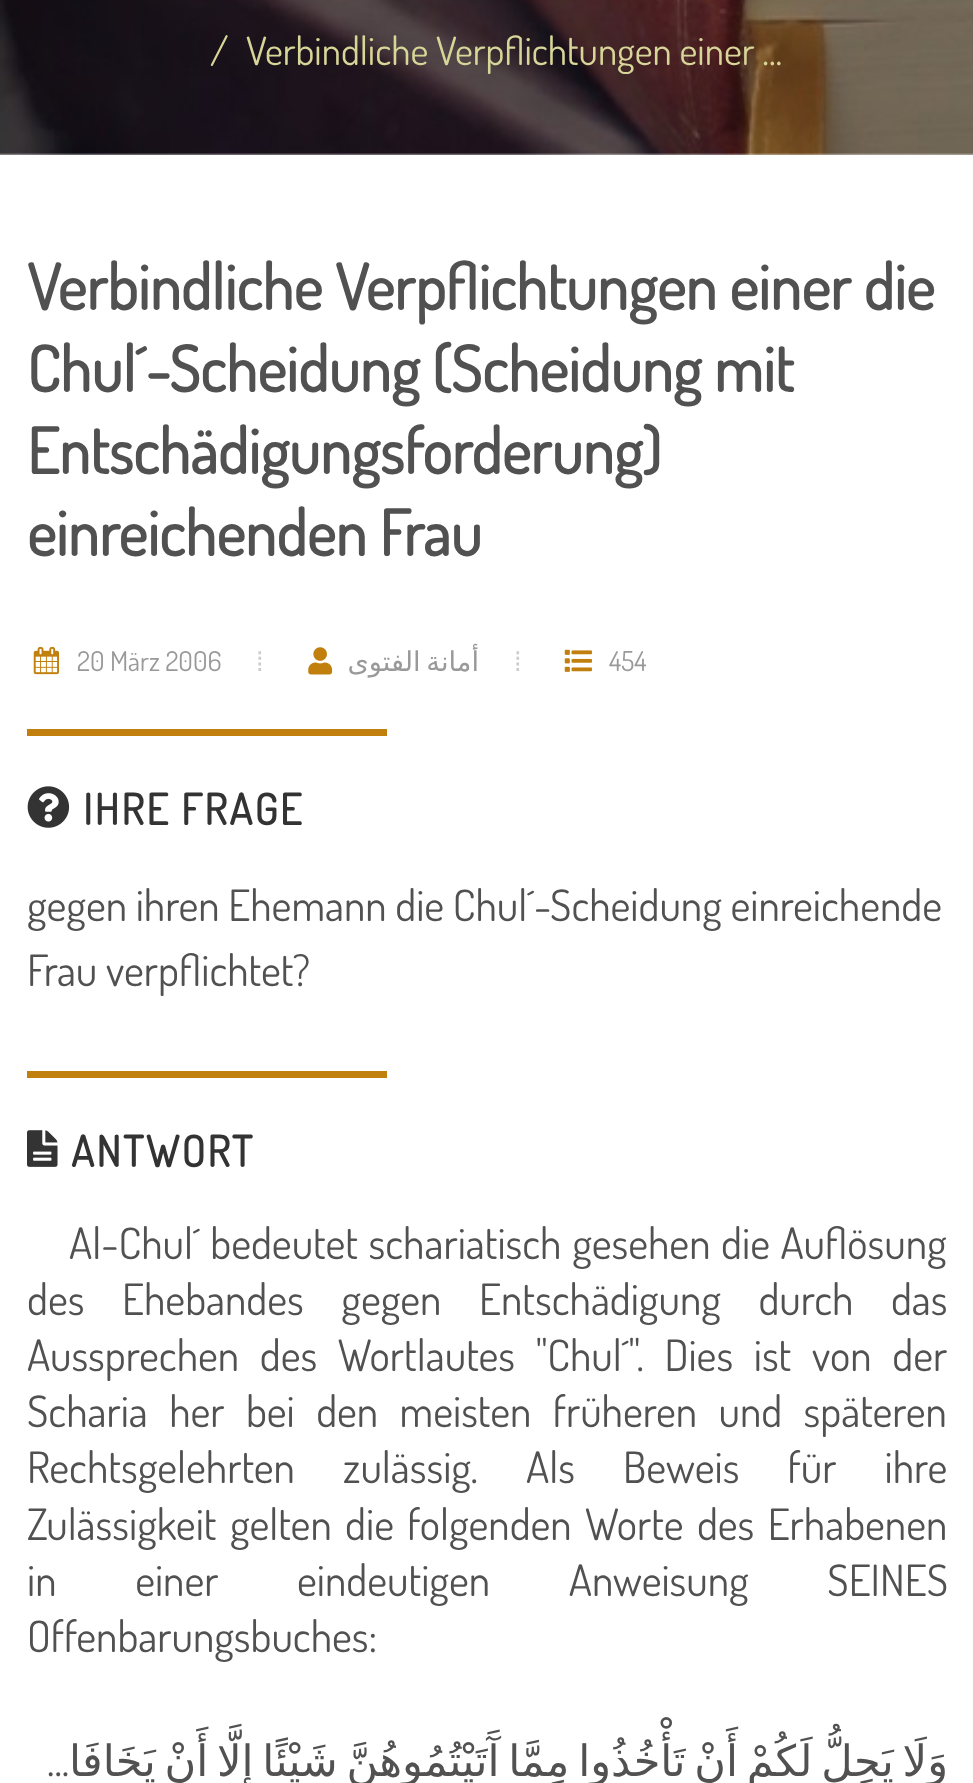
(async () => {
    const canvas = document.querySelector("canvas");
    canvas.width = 973;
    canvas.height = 1783;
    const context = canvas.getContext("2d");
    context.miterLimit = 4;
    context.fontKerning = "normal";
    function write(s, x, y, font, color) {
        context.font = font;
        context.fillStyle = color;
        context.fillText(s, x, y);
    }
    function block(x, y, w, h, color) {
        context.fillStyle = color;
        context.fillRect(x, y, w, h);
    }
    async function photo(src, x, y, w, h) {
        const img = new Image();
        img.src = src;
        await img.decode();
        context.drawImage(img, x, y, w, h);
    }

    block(0, 0, 973, 1783, "rgb(255, 255, 255)");
    await photo("media/1.png", 0, 0, 973, 155);
    block(0, 153, 973, 2, "rgba(255, 255, 255, 0.15)");
    write("/", 210, 65, "38.9px Dosis", "rgb(216, 213, 153)");
    write("Verbindliche Verpflichtungen einer ...", 246, 65, "38.9px Dosis", "rgb(216, 213, 153)");
    write("Verbindliche Verpflichtungen einer die", 27, 310, "bold 63px Dosis", "rgb(81, 81, 81)");
    write("Chul´-Scheidung (Scheidung mit", 27, 392, "bold 63px Dosis", "rgb(81, 81, 81)");
    write("Entschädigungsforderung)", 27, 474, "bold 63px Dosis", "rgb(81, 81, 81)");
    write("einreichenden Frau", 27, 556, "bold 63px Dosis", "rgb(81, 81, 81)");
    await photo("media/2.png", 33, 646, 27, 29);
    write("20 März 2006", 77, 671, "27.25px Dosis", "rgb(153, 153, 153)");
    write("⁞", 256, 671, "27.25px Liberation Sans", "rgb(204, 204, 204)");
    await photo("media/3.png", 308, 647, 25, 28);
    context.wordSpacing = "-3px";
    context.direction = "rtl";
    write("أمانة الفتوى", 479, 671, "27.25px DejaVu Sans", "rgb(153, 153, 153)");
    context.wordSpacing = "0px";
    context.direction = "ltr";
    write("⁞", 514, 671, "27.25px Liberation Sans", "rgb(204, 204, 204)");
    await photo("media/4.png", 564, 649, 28, 23);
    write("454", 609, 671, "27.25px Dosis", "rgb(153, 153, 153)");
    block(27, 729, 360, 7, "rgb(193, 127, 14)");
    await photo("media/5.png", 27, 786, 43, 42);
    context.letterSpacing = "2.25px";
    write("IHRE FRAGE", 83, 825, "bold 42.75px Dosis", "rgb(51, 51, 51)");
    context.letterSpacing = "0px";
    write("gegen ihren Ehemann die Chul´-Scheidung einreichende", 27, 921, "43.2px Dosis", "rgb(81, 81, 81)");
    write("Frau verpflichtet?", 27, 986, "43.2px Dosis", "rgb(81, 81, 81)");
    block(27, 1071, 360, 7, "rgb(193, 127, 14)");
    await photo("media/6.png", 27, 1130, 31, 37);
    context.letterSpacing = "2.25px";
    write("ANTWORT", 71, 1167, "bold 42.75px Dosis", "rgb(51, 51, 51)");
    context.letterSpacing = "0px";
    context.wordSpacing = "2px";
    write("Al-Chul´ bedeutet schariatisch gesehen die Auflösung", 69, 1259, "43.2px Dosis", "rgb(81, 81, 81)");
    context.wordSpacing = "29px";
    write("des Ehebandes gegen Entschädigung durch das", 27, 1315, "43.2px Dosis", "rgb(81, 81, 81)");
    context.wordSpacing = "12px";
    write("Aussprechen des Wortlautes \"Chul´\". Dies ist von der", 27, 1371, "43.2px Dosis", "rgb(81, 81, 81)");
    context.wordSpacing = "12.75px";
    write("Scharia her bei den meisten früheren und späteren", 27, 1427, "43.2px Dosis", "rgb(81, 81, 81)");
    context.wordSpacing = "39.5px";
    write("Rechtsgelehrten zulässig. Als Beweis für ihre", 27, 1483, "43.2px Dosis", "rgb(81, 81, 81)");
    context.wordSpacing = "4.75px";
    write("Zulässigkeit gelten die folgenden Worte des Erhabenen", 27, 1540, "43.2px Dosis", "rgb(81, 81, 81)");
    context.wordSpacing = "70px";
    write("in einer eindeutigen Anweisung SEINES", 27, 1596, "43.2px Dosis", "rgb(81, 81, 81)");
    context.wordSpacing = "0px";
    write("Offenbarungsbuches:", 27, 1652, "43.2px Dosis", "rgb(81, 81, 81)");
    write("...", 47, 1776, "43.2px Dosis", "rgb(81, 81, 81)");
    context.wordSpacing = "-5px";
    context.direction = "rtl";
    write("وَلَا يَحِلُّ لَكُمْ أَنْ تَأْخُذُوا مِمَّا آَتَيْتُمُوهُنَّ شَيْئًا إِلَّا أَنْ يَخَافَا", 948, 1776, "43.2px DejaVu Sans", "rgb(81, 81, 81)");
})();
